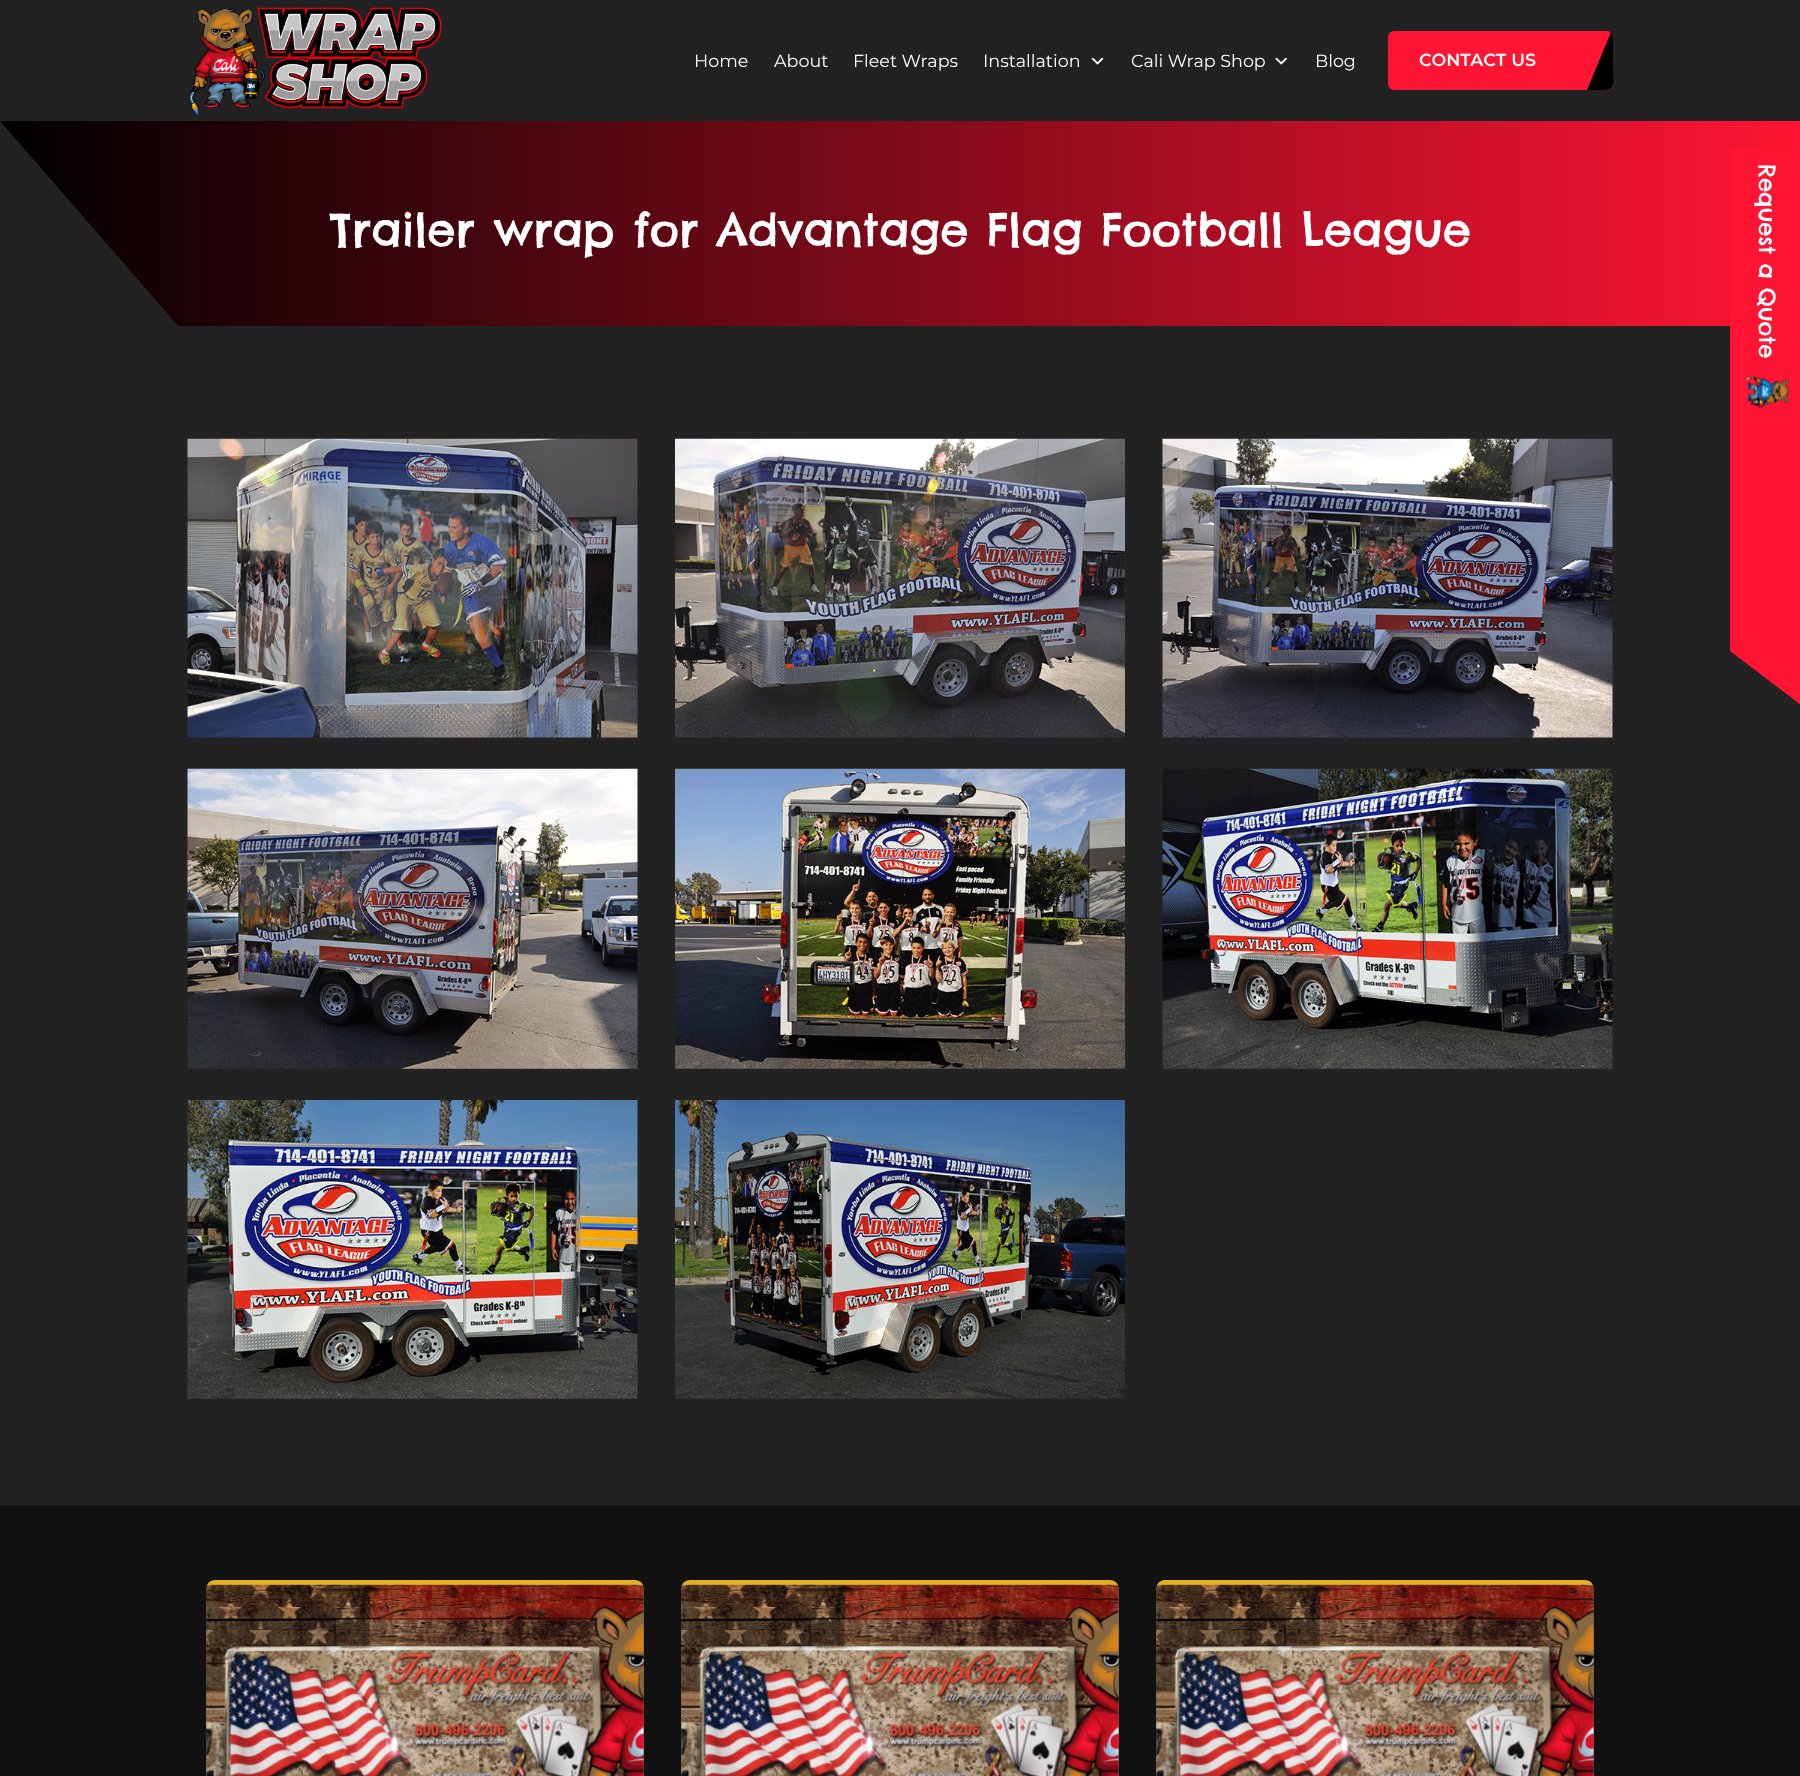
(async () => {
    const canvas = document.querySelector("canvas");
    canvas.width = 1800;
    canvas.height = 1776;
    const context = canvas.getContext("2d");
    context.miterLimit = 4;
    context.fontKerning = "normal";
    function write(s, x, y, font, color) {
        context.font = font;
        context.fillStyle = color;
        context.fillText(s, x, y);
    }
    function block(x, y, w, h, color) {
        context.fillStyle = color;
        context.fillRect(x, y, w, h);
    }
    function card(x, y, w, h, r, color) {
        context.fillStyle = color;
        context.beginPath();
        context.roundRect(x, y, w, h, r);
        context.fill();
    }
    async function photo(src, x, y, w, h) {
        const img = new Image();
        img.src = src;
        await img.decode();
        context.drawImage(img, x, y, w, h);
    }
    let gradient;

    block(0, 0, 1800, 1776, "rgb(34, 34, 34)");
    await photo("media/1.png", 189, 7, 253, 108);
    write("Home", 694, 67, "17.5px Montserrat", "rgb(255, 255, 255)");
    write("About", 774, 67, "17.5px Montserrat", "rgb(255, 255, 255)");
    write("Fleet Wraps", 853, 67, "17.5px Montserrat", "rgb(255, 255, 255)");
    write("Installation", 983, 67, "17.5px Montserrat", "rgb(255, 255, 255)");
    await photo("media/2.png", 1091, 57, 13, 8);
    write("Cali Wrap Shop", 1131, 67, "17.5px Montserrat", "rgb(255, 255, 255)");
    await photo("media/3.png", 1275, 57, 13, 8);
    write("Blog", 1315, 67, "17.5px Montserrat", "rgb(255, 255, 255)");
    card(1388, 31, 225, 59, 6, "rgb(254, 21, 51)");
    write("CONTACT US", 1419, 66, "600 17.5px Montserrat", "rgb(255, 255, 255)");
    context.fillStyle = "rgb(0, 0, 0)";
    context.beginPath();
    context.moveTo(1611, 32);
    context.bezierCurveTo(1614, 35, 1613, 41, 1613, 45);
    context.lineTo(1613, 60);
    context.bezierCurveTo(1613, 94, 1618, 90, 1587, 90);
    context.closePath();
    context.fill();
    context.save();
    context.beginPath();
    context.rect(0, 121, 1800, 205);
    context.clip();
    gradient = context.createLinearGradient(0, 224, 1800, 224);
    gradient.addColorStop(0, "rgb(0, 0, 0)");
    gradient.addColorStop(1, "rgb(254, 21, 51)");
    context.fillStyle = gradient;
    context.beginPath();
    context.moveTo(0, 121);
    context.lineTo(180, 328);
    context.lineTo(1800, 328);
    context.lineTo(1800, 121);
    context.closePath();
    context.fill();
    context.restore();
    write("Trailer wrap for Advantage Flag Football League", 330, 246, "45px Chelsea Market", "rgb(255, 255, 255)");
    await photo("media/4.png", 187, 438, 451, 300);
    await photo("media/5.png", 675, 438, 450, 300);
    await photo("media/6.png", 1162, 438, 451, 300);
    await photo("media/7.png", 187, 768, 451, 301);
    await photo("media/8.png", 675, 768, 450, 301);
    await photo("media/9.png", 1162, 768, 451, 301);
    await photo("media/10.png", 187, 1100, 451, 299);
    await photo("media/11.png", 675, 1100, 450, 299);
    block(0, 1505, 1800, 271, "rgb(17, 17, 17)");
    context.fillStyle = "rgb(92, 92, 92)";
    context.beginPath();
    context.moveTo(215, 1580);
    context.lineTo(635, 1580);
    context.bezierCurveTo(640, 1580, 644, 1584, 644, 1589);
    context.lineTo(644, 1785);
    context.lineTo(206, 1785);
    context.lineTo(206, 1589);
    context.bezierCurveTo(206, 1584, 210, 1580, 215, 1580);
    context.closePath();
    context.fill();
    await photo("media/12.png", 206, 1580, 438, 196);
    context.beginPath();
    context.moveTo(690, 1580);
    context.lineTo(1110, 1580);
    context.bezierCurveTo(1115, 1580, 1119, 1584, 1119, 1589);
    context.lineTo(1119, 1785);
    context.lineTo(681, 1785);
    context.lineTo(681, 1589);
    context.bezierCurveTo(681, 1584, 685, 1580, 690, 1580);
    context.closePath();
    context.fill();
    await photo("media/13.png", 681, 1580, 438, 196);
    context.beginPath();
    context.moveTo(1165, 1580);
    context.lineTo(1585, 1580);
    context.bezierCurveTo(1590, 1580, 1594, 1584, 1594, 1589);
    context.lineTo(1594, 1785);
    context.lineTo(1156, 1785);
    context.lineTo(1156, 1589);
    context.bezierCurveTo(1156, 1584, 1160, 1580, 1165, 1580);
    context.closePath();
    context.fill();
    await photo("media/14.png", 1156, 1580, 438, 196);
    context.save();
    context.beginPath();
    context.rect(1726, 150, 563, 1620);
    context.clip();
    context.fillStyle = "rgb(254, 21, 51)";
    context.beginPath();
    context.moveTo(1730, 145);
    context.lineTo(1730, 651);
    context.lineTo(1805, 708);
    context.lineTo(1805, 145);
    context.closePath();
    context.fill();
    context.restore();
    context.font = "22.5px Chelsea Market";
    context.fillStyle = "rgb(255, 255, 255)";
    context.save();
    context.translate(1759, 164);
    context.rotate(90 * Math.PI / 180);
    context.fillText("Request a Quote", 0, 0);
    context.restore();
    await photo("media/15.png", 1745, 376, 44, 33);
})();
